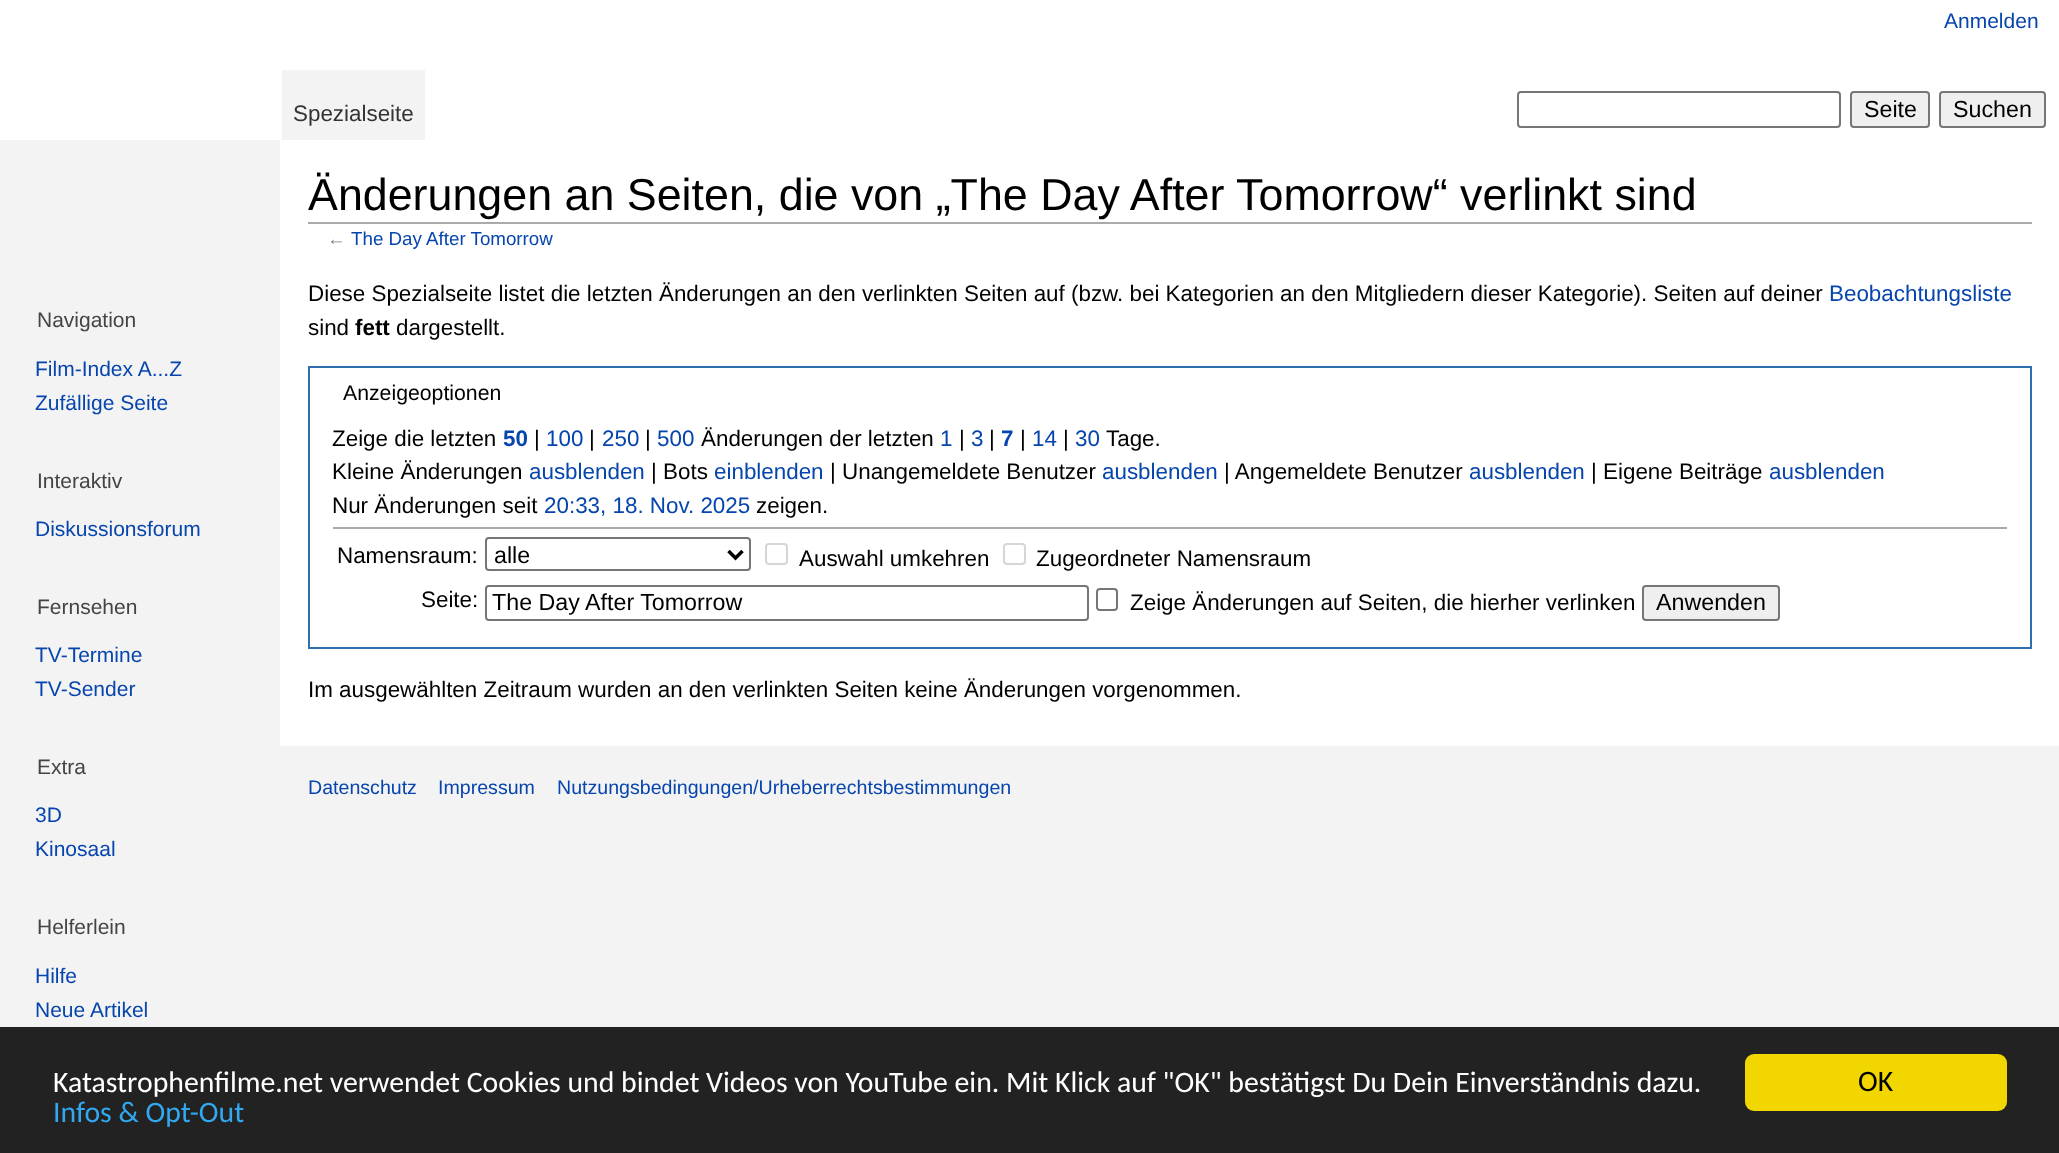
(async () => {
    const canvas = document.querySelector("canvas");
    canvas.width = 2059;
    canvas.height = 1153;
    const context = canvas.getContext("2d");
    context.miterLimit = 4;
    context.fontKerning = "normal";
    function write(s, x, y, font, color) {
        context.font = font;
        context.fillStyle = color;
        context.fillText(s, x, y);
    }
    function block(x, y, w, h, color) {
        context.fillStyle = color;
        context.fillRect(x, y, w, h);
    }
    function card(x, y, w, h, r, color) {
        context.fillStyle = color;
        context.beginPath();
        context.roundRect(x, y, w, h, r);
        context.fill();
    }

    block(0, 0, 2059, 1153, "rgb(243, 243, 243)");
    block(0, 0, 2059, 140, "rgb(255, 255, 255)");
    write("Anmelden", 1944, 28, "21px Liberation Sans", "rgb(6, 69, 173)");
    block(282, 70, 143, 70, "rgb(243, 243, 243)");
    write("Spezialseite", 293, 121, "22.4px Liberation Sans", "rgb(51, 51, 51)");
    context.beginPath();
    context.roundRect(1518, 92, 322, 35, 3);
    context.strokeStyle = "rgb(118, 118, 118)";
    context.lineWidth = 2;
    context.stroke();
    context.fillStyle = "rgb(239, 239, 239)";
    context.beginPath();
    context.roundRect(1851, 92, 78, 35, 3);
    context.fill();
    context.stroke();
    write("Seite", 1864, 117, "23.25px Liberation Sans", "rgb(0, 0, 0)");
    context.fillStyle = "rgb(239, 239, 239)";
    context.beginPath();
    context.roundRect(1940, 92, 105, 35, 3);
    context.fill();
    context.stroke();
    write("Suchen", 1953, 117, "23.25px Liberation Sans", "rgb(0, 0, 0)");
    write("Navigation", 37, 327, "21px Liberation Sans", "rgb(68, 68, 68)");
    write("Film-Index A...Z", 35, 376, "21px Liberation Sans", "rgb(6, 69, 173)");
    write("Zufällige Seite", 35, 410, "21px Liberation Sans", "rgb(6, 69, 173)");
    write("Interaktiv", 37, 488, "21px Liberation Sans", "rgb(68, 68, 68)");
    write("Diskussionsforum", 35, 536, "21px Liberation Sans", "rgb(6, 69, 173)");
    write("Fernsehen", 37, 614, "21px Liberation Sans", "rgb(68, 68, 68)");
    write("TV-Termine", 35, 662, "21px Liberation Sans", "rgb(6, 69, 173)");
    write("TV-Sender", 35, 696, "21px Liberation Sans", "rgb(6, 69, 173)");
    write("Extra", 37, 774, "21px Liberation Sans", "rgb(68, 68, 68)");
    write("3D", 35, 822, "21px Liberation Sans", "rgb(6, 69, 173)");
    write("Kinosaal", 35, 856, "21px Liberation Sans", "rgb(6, 69, 173)");
    write("Helferlein", 37, 934, "21px Liberation Sans", "rgb(68, 68, 68)");
    write("Hilfe", 35, 983, "21px Liberation Sans", "rgb(6, 69, 173)");
    write("Neue Artikel", 35, 1017, "21px Liberation Sans", "rgb(6, 69, 173)");
    block(280, 140, 1779, 606, "rgb(255, 255, 255)");
    block(308, 222, 1724, 2, "rgb(170, 170, 170)");
    write("Änderungen an Seiten, die von „The Day After Tomorrow“ verlinkt sind", 308, 210, "44.8px Liberation Sans", "rgb(0, 0, 0)");
    write("←", 327, 245, "18.75px Liberation Sans", "rgb(125, 125, 125)");
    write("The Day After Tomorrow", 351, 245, "18.75px Liberation Sans", "rgb(6, 69, 173)");
    write("Diese Spezialseite listet die letzten Änderungen an den verlinkten Seiten auf (bzw. bei Kategorien an den Mitgliedern dieser Kategorie). Seiten auf deiner", 308, 301, "22.4px Liberation Sans", "rgb(0, 0, 0)");
    write("Beobachtungsliste", 1829, 301, "22.4px Liberation Sans", "rgb(6, 69, 173)");
    write("sind", 308, 335, "22.4px Liberation Sans", "rgb(0, 0, 0)");
    write("fett", 355, 335, "bold 22.4px Liberation Sans", "rgb(0, 0, 0)");
    write("dargestellt.", 396, 335, "22.4px Liberation Sans", "rgb(0, 0, 0)");
    context.strokeStyle = "rgb(47, 111, 171)";
    context.strokeRect(309, 367, 1722, 281);
    write("Anzeigeoptionen", 343, 400, "21.25px Liberation Sans", "rgb(0, 0, 0)");
    write("Zeige die letzten", 332, 446, "22.4px Liberation Sans", "rgb(0, 0, 0)");
    write("50", 503, 446, "bold 22.4px Liberation Sans", "rgb(6, 69, 173)");
    write("|", 534, 446, "22.4px Liberation Sans", "rgb(0, 0, 0)");
    write("100", 546, 446, "22.4px Liberation Sans", "rgb(6, 69, 173)");
    write("|", 589, 446, "22.4px Liberation Sans", "rgb(0, 0, 0)");
    write("250", 602, 446, "22.4px Liberation Sans", "rgb(6, 69, 173)");
    write("|", 645, 446, "22.4px Liberation Sans", "rgb(0, 0, 0)");
    write("500", 657, 446, "22.4px Liberation Sans", "rgb(6, 69, 173)");
    write("Änderungen der letzten", 701, 446, "22.4px Liberation Sans", "rgb(0, 0, 0)");
    write("1", 940, 446, "22.4px Liberation Sans", "rgb(6, 69, 173)");
    write("|", 959, 446, "22.4px Liberation Sans", "rgb(0, 0, 0)");
    write("3", 971, 446, "22.4px Liberation Sans", "rgb(6, 69, 173)");
    write("|", 989, 446, "22.4px Liberation Sans", "rgb(0, 0, 0)");
    write("7", 1001, 446, "bold 22.4px Liberation Sans", "rgb(6, 69, 173)");
    write("|", 1020, 446, "22.4px Liberation Sans", "rgb(0, 0, 0)");
    write("14", 1032, 446, "22.4px Liberation Sans", "rgb(6, 69, 173)");
    write("|", 1063, 446, "22.4px Liberation Sans", "rgb(0, 0, 0)");
    write("30", 1075, 446, "22.4px Liberation Sans", "rgb(6, 69, 173)");
    write("Tage.", 1106, 446, "22.4px Liberation Sans", "rgb(0, 0, 0)");
    write("Kleine Änderungen", 332, 479, "22.4px Liberation Sans", "rgb(0, 0, 0)");
    write("ausblenden", 529, 479, "22.4px Liberation Sans", "rgb(6, 69, 173)");
    write("| Bots", 651, 479, "22.4px Liberation Sans", "rgb(0, 0, 0)");
    write("einblenden", 714, 479, "22.4px Liberation Sans", "rgb(6, 69, 173)");
    write("| Unangemeldete Benutzer", 830, 479, "22.4px Liberation Sans", "rgb(0, 0, 0)");
    write("ausblenden", 1102, 479, "22.4px Liberation Sans", "rgb(6, 69, 173)");
    write("| Angemeldete Benutzer", 1224, 479, "22.4px Liberation Sans", "rgb(0, 0, 0)");
    write("ausblenden", 1469, 479, "22.4px Liberation Sans", "rgb(6, 69, 173)");
    write("| Eigene Beiträge", 1591, 479, "22.4px Liberation Sans", "rgb(0, 0, 0)");
    write("ausblenden", 1769, 479, "22.4px Liberation Sans", "rgb(6, 69, 173)");
    write("Nur Änderungen seit", 332, 513, "22.4px Liberation Sans", "rgb(0, 0, 0)");
    write("20:33, 18. Nov. 2025", 544, 513, "22.4px Liberation Sans", "rgb(6, 69, 173)");
    write("zeigen.", 756, 513, "22.4px Liberation Sans", "rgb(0, 0, 0)");
    block(333, 527, 1674, 2, "rgb(170, 170, 170)");
    write("Namensraum:", 337, 563, "22.4px Liberation Sans", "rgb(0, 0, 0)");
    context.beginPath();
    context.roundRect(486, 538, 264, 32, 3);
    context.strokeStyle = "rgb(118, 118, 118)";
    context.stroke();
    context.beginPath();
    context.moveTo(728.5, 551);
    context.lineTo(735.5, 558);
    context.lineTo(742.5, 551);
    context.strokeStyle = "rgb(0, 0, 0)";
    context.lineWidth = 3.5;
    context.stroke();
    write("alle", 494, 563, "23.25px Liberation Sans", "rgb(0, 0, 0)");
    context.beginPath();
    context.roundRect(766, 544, 21, 20, 3);
    context.strokeStyle = "rgb(214, 214, 214)";
    context.lineWidth = 2;
    context.stroke();
    write("Auswahl umkehren", 799, 566, "22.4px Liberation Sans", "rgb(0, 0, 0)");
    context.beginPath();
    context.roundRect(1004, 544, 21, 20, 3);
    context.stroke();
    write("Zugeordneter Namensraum", 1036, 566, "22.4px Liberation Sans", "rgb(0, 0, 0)");
    write("Seite:", 421, 607, "22.4px Liberation Sans", "rgb(0, 0, 0)");
    context.beginPath();
    context.roundRect(486, 586, 602, 34, 3);
    context.strokeStyle = "rgb(118, 118, 118)";
    context.stroke();
    write("The Day After Tomorrow", 492, 610, "23.25px Liberation Sans", "rgb(0, 0, 0)");
    context.beginPath();
    context.roundRect(1097, 589, 20, 21, 3);
    context.stroke();
    write("Zeige Änderungen auf Seiten, die hierher verlinken", 1130, 610, "22.4px Liberation Sans", "rgb(0, 0, 0)");
    context.fillStyle = "rgb(239, 239, 239)";
    context.beginPath();
    context.roundRect(1643, 586, 136, 34, 3);
    context.fill();
    context.stroke();
    write("Anwenden", 1656, 610, "23.25px Liberation Sans", "rgb(0, 0, 0)");
    write("Im ausgewählten Zeitraum wurden an den verlinkten Seiten keine Änderungen vorgenommen.", 308, 697, "22.4px Liberation Sans", "rgb(0, 0, 0)");
    write("Datenschutz", 308, 794, "19.6px Liberation Sans", "rgb(6, 69, 173)");
    write("Impressum", 438, 794, "19.6px Liberation Sans", "rgb(6, 69, 173)");
    write("Nutzungsbedingungen/Urheberrechtsbestimmungen", 557, 794, "19.6px Liberation Sans", "rgb(6, 69, 173)");
    block(0, 1027, 2059, 126, "rgb(34, 34, 34)");
    write("Katastrophenfilme.net verwendet Cookies und bindet Videos von YouTube ein. Mit Klick auf \"OK\" bestätigst Du Dein Einverständnis dazu.", 53, 1092, "29.75px Carlito", "rgb(255, 255, 255)");
    write("Infos & Opt-Out", 53, 1122, "29.75px Carlito", "rgb(49, 168, 240)");
    card(1745, 1054, 262, 57, 9, "rgb(241, 214, 0)");
    write("OK", 1858, 1091, "29.75px Carlito", "rgb(0, 0, 0)");
})();
